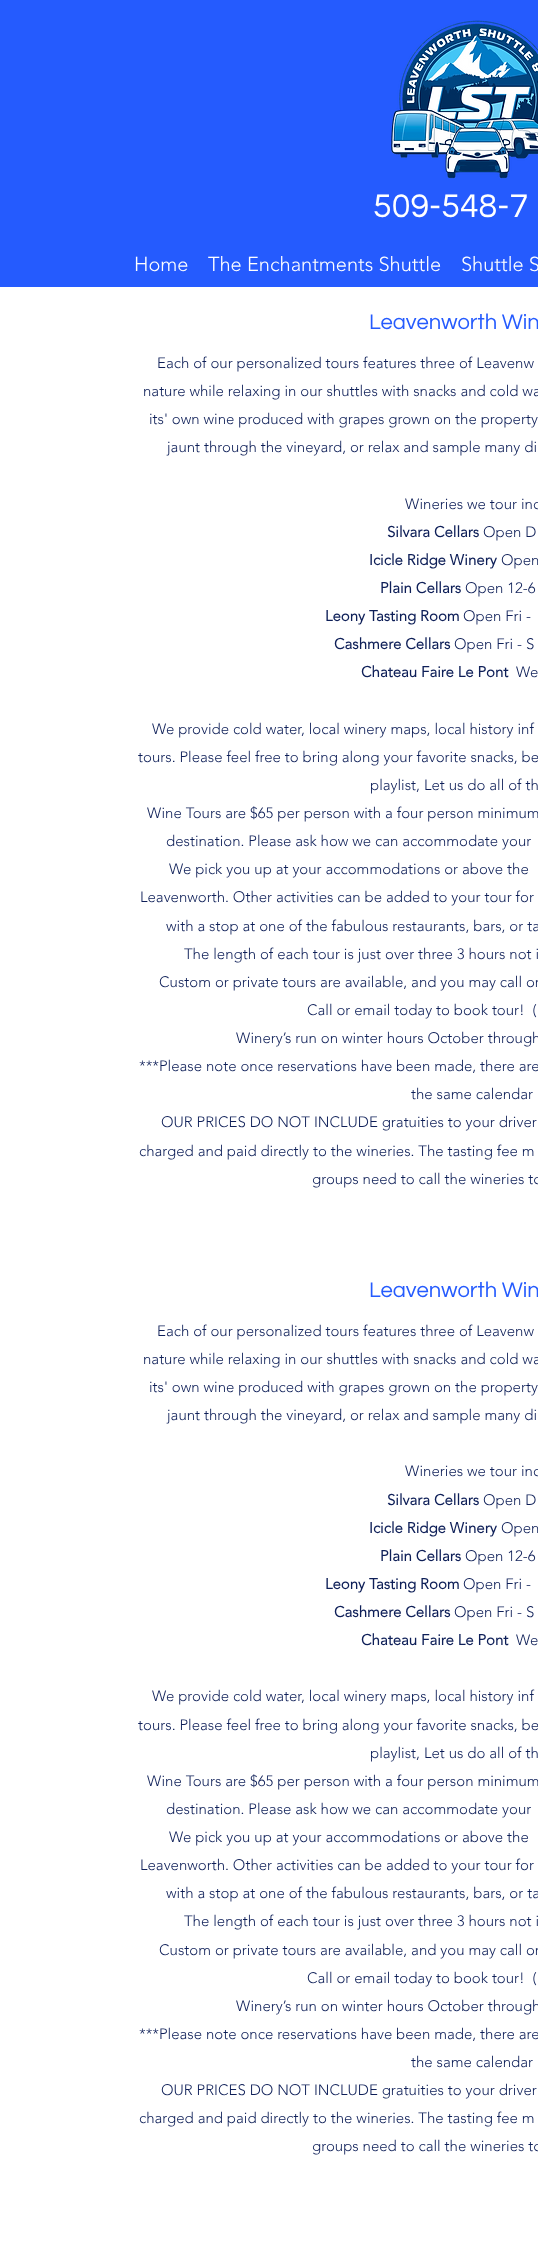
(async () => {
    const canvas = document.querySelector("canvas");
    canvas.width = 538;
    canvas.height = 2254;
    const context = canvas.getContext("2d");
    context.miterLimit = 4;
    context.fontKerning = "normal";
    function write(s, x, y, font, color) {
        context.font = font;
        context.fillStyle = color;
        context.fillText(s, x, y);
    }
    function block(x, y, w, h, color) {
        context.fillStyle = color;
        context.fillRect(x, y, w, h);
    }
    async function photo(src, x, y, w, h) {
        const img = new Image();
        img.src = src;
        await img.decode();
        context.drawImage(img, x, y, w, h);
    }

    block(0, 0, 538, 2254, "rgb(255, 255, 255)");
    block(0, 0, 538, 287, "rgb(37, 91, 254)");
    await photo("media/1.png", 391, 20, 147, 159);
    write("509-548-7", 373, 217, "34px Questrial", "rgb(255, 255, 255)");
    write("Home", 134, 271, "300 20px 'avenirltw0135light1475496'", "rgb(255, 255, 255)");
    write("The Enchantments Shuttle", 208, 271, "300 20px 'avenirltw0135light1475496'", "rgb(255, 255, 255)");
    write("Shuttle S", 461, 271, "300 20px 'avenirltw0135light1475496'", "rgb(255, 255, 255)");
    write("Leavenworth Win", 369, 329, "22px Questrial", "rgb(37, 91, 254)");
    write("Each of our personalized tours features three of Leavenw", 157, 368, "300 15px 'avenirltw0135light1475496'", "rgb(14, 31, 88)");
    write("nature while relaxing in our shuttles with snacks and cold wa", 143, 396, "300 15px 'avenirltw0135light1475496'", "rgb(14, 31, 88)");
    write("its' own wine produced with grapes grown on the property", 149, 424, "300 15px 'avenirltw0135light1475496'", "rgb(14, 31, 88)");
    write("jaunt through the vineyard, or relax and sample many di", 167, 452, "300 15px 'avenirltw0135light1475496'", "rgb(14, 31, 88)");
    write("Wineries we tour inc", 405, 509, "300 15px 'avenirltw0135light1475496'", "rgb(14, 31, 88)");
    write("Silvara Cellars", 387, 537, "bold 15px 'avenirltw0135light1475496'", "rgb(14, 31, 88)");
    write("Open D", 483, 537, "300 15px 'avenirltw0135light1475496'", "rgb(14, 31, 88)");
    write("Icicle Ridge Winery", 369, 565, "bold 15px 'avenirltw0135light1475496'", "rgb(14, 31, 88)");
    write("Open", 501, 565, "300 15px 'avenirltw0135light1475496'", "rgb(14, 31, 88)");
    write("Plain Cellars", 380, 593, "bold 15px 'avenirltw0135light1475496'", "rgb(14, 31, 88)");
    write("Open 12-6", 465, 593, "300 15px 'avenirltw0135light1475496'", "rgb(14, 31, 88)");
    write("Leony Tasting Room", 325, 621, "bold 15px 'avenirltw0135light1475496'", "rgb(14, 31, 88)");
    write("Open Fri -", 463, 621, "300 15px 'avenirltw0135light1475496'", "rgb(14, 31, 88)");
    write("Cashmere Cellars", 334, 649, "bold 15px 'avenirltw0135light1475496'", "rgb(14, 31, 88)");
    write("Open Fri - S", 454, 649, "300 15px 'avenirltw0135light1475496'", "rgb(14, 31, 88)");
    write("Chateau Faire Le Pont", 361, 677, "bold 15px 'avenirltw0135light1475496'", "rgb(14, 31, 88)");
    write("We", 516, 677, "300 15px 'avenirltw0135light1475496'", "rgb(14, 31, 88)");
    write("We provide cold water, local winery maps, local history inf", 152, 734, "300 15px 'avenirltw0135light1475496'", "rgb(14, 31, 88)");
    write("tours. Please feel free to bring along your favorite snacks, be", 138, 762, "300 15px 'avenirltw0135light1475496'", "rgb(14, 31, 88)");
    write("playlist, Let us do all of th", 370, 790, "300 15px 'avenirltw0135light1475496'", "rgb(14, 31, 88)");
    write("Wine Tours are $65 per person with a four person minimum", 147, 818, "300 15px 'avenirltw0135light1475496'", "rgb(14, 31, 88)");
    write("destination. Please ask how we can accommodate your", 166, 846, "300 15px 'avenirltw0135light1475496'", "rgb(14, 31, 88)");
    write("We pick you up at your accommodations or above the", 169, 874, "300 15px 'avenirltw0135light1475496'", "rgb(14, 31, 88)");
    write("Leavenworth. Other activities can be added to your tour for", 140, 902, "300 15px 'avenirltw0135light1475496'", "rgb(14, 31, 88)");
    write("with a stop at one of the fabulous restaurants, bars, or ta", 166, 931, "300 15px 'avenirltw0135light1475496'", "rgb(14, 31, 88)");
    write("The length of each tour is just over three 3 hours not i", 184, 959, "300 15px 'avenirltw0135light1475496'", "rgb(14, 31, 88)");
    write("Custom or private tours are available, and you may call or", 159, 987, "300 15px 'avenirltw0135light1475496'", "rgb(14, 31, 88)");
    write("Call or email today to book tour!  (", 307, 1015, "300 15px 'avenirltw0135light1475496'", "rgb(14, 31, 88)");
    write("Winery’s run on winter hours October through", 236, 1043, "300 15px 'avenirltw0135light1475496'", "rgb(14, 31, 88)");
    write("***Please note once reservations have been made, there are", 139, 1071, "300 15px 'avenirltw0135light1475496'", "rgb(14, 31, 88)");
    write("the same calendar", 411, 1099, "300 15px 'avenirltw0135light1475496'", "rgb(14, 31, 88)");
    write("OUR PRICES DO NOT INCLUDE gratuities to your driver", 161, 1127, "300 15px 'avenirltw0135light1475496'", "rgb(14, 31, 88)");
    write("charged and paid directly to the wineries. The tasting fee m", 139, 1156, "300 15px 'avenirltw0135light1475496'", "rgb(14, 31, 88)");
    write("groups need to call the wineries to", 312, 1184, "300 15px 'avenirltw0135light1475496'", "rgb(14, 31, 88)");
    write("Leavenworth Win", 369, 1297, "22px Questrial", "rgb(37, 91, 254)");
    write("Each of our personalized tours features three of Leavenw", 157, 1336, "300 15px 'avenirltw0135light1475496'", "rgb(14, 31, 88)");
    write("nature while relaxing in our shuttles with snacks and cold wa", 143, 1364, "300 15px 'avenirltw0135light1475496'", "rgb(14, 31, 88)");
    write("its' own wine produced with grapes grown on the property", 149, 1392, "300 15px 'avenirltw0135light1475496'", "rgb(14, 31, 88)");
    write("jaunt through the vineyard, or relax and sample many di", 167, 1420, "300 15px 'avenirltw0135light1475496'", "rgb(14, 31, 88)");
    write("Wineries we tour inc", 405, 1476, "300 15px 'avenirltw0135light1475496'", "rgb(14, 31, 88)");
    write("Silvara Cellars", 387, 1505, "bold 15px 'avenirltw0135light1475496'", "rgb(14, 31, 88)");
    write("Open D", 483, 1505, "300 15px 'avenirltw0135light1475496'", "rgb(14, 31, 88)");
    write("Icicle Ridge Winery", 369, 1533, "bold 15px 'avenirltw0135light1475496'", "rgb(14, 31, 88)");
    write("Open", 501, 1533, "300 15px 'avenirltw0135light1475496'", "rgb(14, 31, 88)");
    write("Plain Cellars", 380, 1561, "bold 15px 'avenirltw0135light1475496'", "rgb(14, 31, 88)");
    write("Open 12-6", 465, 1561, "300 15px 'avenirltw0135light1475496'", "rgb(14, 31, 88)");
    write("Leony Tasting Room", 325, 1589, "bold 15px 'avenirltw0135light1475496'", "rgb(14, 31, 88)");
    write("Open Fri -", 463, 1589, "300 15px 'avenirltw0135light1475496'", "rgb(14, 31, 88)");
    write("Cashmere Cellars", 334, 1617, "bold 15px 'avenirltw0135light1475496'", "rgb(14, 31, 88)");
    write("Open Fri - S", 454, 1617, "300 15px 'avenirltw0135light1475496'", "rgb(14, 31, 88)");
    write("Chateau Faire Le Pont", 361, 1645, "bold 15px 'avenirltw0135light1475496'", "rgb(14, 31, 88)");
    write("We", 516, 1645, "300 15px 'avenirltw0135light1475496'", "rgb(14, 31, 88)");
    write("We provide cold water, local winery maps, local history inf", 152, 1701, "300 15px 'avenirltw0135light1475496'", "rgb(14, 31, 88)");
    write("tours. Please feel free to bring along your favorite snacks, be", 138, 1730, "300 15px 'avenirltw0135light1475496'", "rgb(14, 31, 88)");
    write("playlist, Let us do all of th", 370, 1758, "300 15px 'avenirltw0135light1475496'", "rgb(14, 31, 88)");
    write("Wine Tours are $65 per person with a four person minimum", 147, 1786, "300 15px 'avenirltw0135light1475496'", "rgb(14, 31, 88)");
    write("destination. Please ask how we can accommodate your", 166, 1814, "300 15px 'avenirltw0135light1475496'", "rgb(14, 31, 88)");
    write("We pick you up at your accommodations or above the", 169, 1842, "300 15px 'avenirltw0135light1475496'", "rgb(14, 31, 88)");
    write("Leavenworth. Other activities can be added to your tour for", 140, 1870, "300 15px 'avenirltw0135light1475496'", "rgb(14, 31, 88)");
    write("with a stop at one of the fabulous restaurants, bars, or ta", 166, 1898, "300 15px 'avenirltw0135light1475496'", "rgb(14, 31, 88)");
    write("The length of each tour is just over three 3 hours not i", 184, 1926, "300 15px 'avenirltw0135light1475496'", "rgb(14, 31, 88)");
    write("Custom or private tours are available, and you may call or", 159, 1955, "300 15px 'avenirltw0135light1475496'", "rgb(14, 31, 88)");
    write("Call or email today to book tour!  (", 307, 1983, "300 15px 'avenirltw0135light1475496'", "rgb(14, 31, 88)");
    write("Winery’s run on winter hours October through", 236, 2011, "300 15px 'avenirltw0135light1475496'", "rgb(14, 31, 88)");
    write("***Please note once reservations have been made, there are", 139, 2039, "300 15px 'avenirltw0135light1475496'", "rgb(14, 31, 88)");
    write("the same calendar", 411, 2067, "300 15px 'avenirltw0135light1475496'", "rgb(14, 31, 88)");
    write("OUR PRICES DO NOT INCLUDE gratuities to your driver", 161, 2095, "300 15px 'avenirltw0135light1475496'", "rgb(14, 31, 88)");
    write("charged and paid directly to the wineries. The tasting fee m", 139, 2123, "300 15px 'avenirltw0135light1475496'", "rgb(14, 31, 88)");
    write("groups need to call the wineries to", 312, 2151, "300 15px 'avenirltw0135light1475496'", "rgb(14, 31, 88)");
})();
